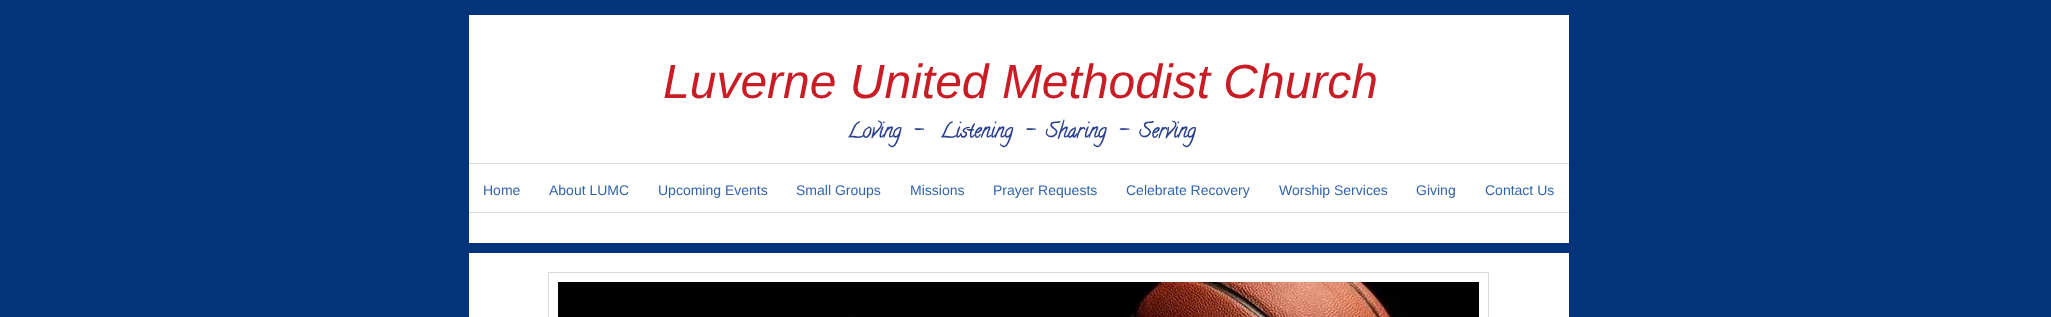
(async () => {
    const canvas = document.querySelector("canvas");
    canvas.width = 2051;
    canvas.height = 317;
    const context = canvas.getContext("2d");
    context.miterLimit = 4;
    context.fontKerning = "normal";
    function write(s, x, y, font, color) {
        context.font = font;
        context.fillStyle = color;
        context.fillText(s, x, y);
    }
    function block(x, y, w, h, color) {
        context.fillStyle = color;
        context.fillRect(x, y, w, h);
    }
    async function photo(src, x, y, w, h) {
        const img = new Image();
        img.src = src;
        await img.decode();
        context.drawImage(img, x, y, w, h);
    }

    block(0, 0, 2051, 317, "rgb(3, 51, 121)");
    block(469, 15, 1100, 228, "rgb(255, 255, 255)");
    write("Luverne United Methodist Church", 663, 98, "italic 48px Liberation Sans", "rgb(202, 28, 37)");
    write("Loving  -   Listening  -  Sharing  -  Serving", 847, 137, "bold 20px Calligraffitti", "rgb(42, 64, 142)");
    block(469, 163, 1100, 1, "rgb(217, 217, 216)");
    write("Home", 483, 195, "14px Liberation Sans", "rgb(50, 99, 175)");
    write("About LUMC", 549, 195, "14px Liberation Sans", "rgb(50, 99, 175)");
    write("Upcoming Events", 658, 195, "14px Liberation Sans", "rgb(50, 99, 175)");
    write("Small Groups", 796, 195, "14px Liberation Sans", "rgb(50, 99, 175)");
    write("Missions", 910, 195, "14px Liberation Sans", "rgb(50, 99, 175)");
    write("Prayer Requests", 993, 195, "14px Liberation Sans", "rgb(50, 99, 175)");
    write("Celebrate Recovery", 1126, 195, "14px Liberation Sans", "rgb(50, 99, 175)");
    write("Worship Services", 1279, 195, "14px Liberation Sans", "rgb(50, 99, 175)");
    write("Giving", 1416, 195, "14px Liberation Sans", "rgb(50, 99, 175)");
    write("Contact Us", 1485, 195, "14px Liberation Sans", "rgb(50, 99, 175)");
    block(469, 212, 1100, 1, "rgb(217, 217, 216)");
    block(469, 253, 1100, 64, "rgb(255, 255, 255)");
    context.strokeStyle = "rgb(217, 217, 217)";
    context.strokeRect(548.5, 272.5, 940, 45);
    await photo("media/1.png", 558, 282, 921, 35);
})();
